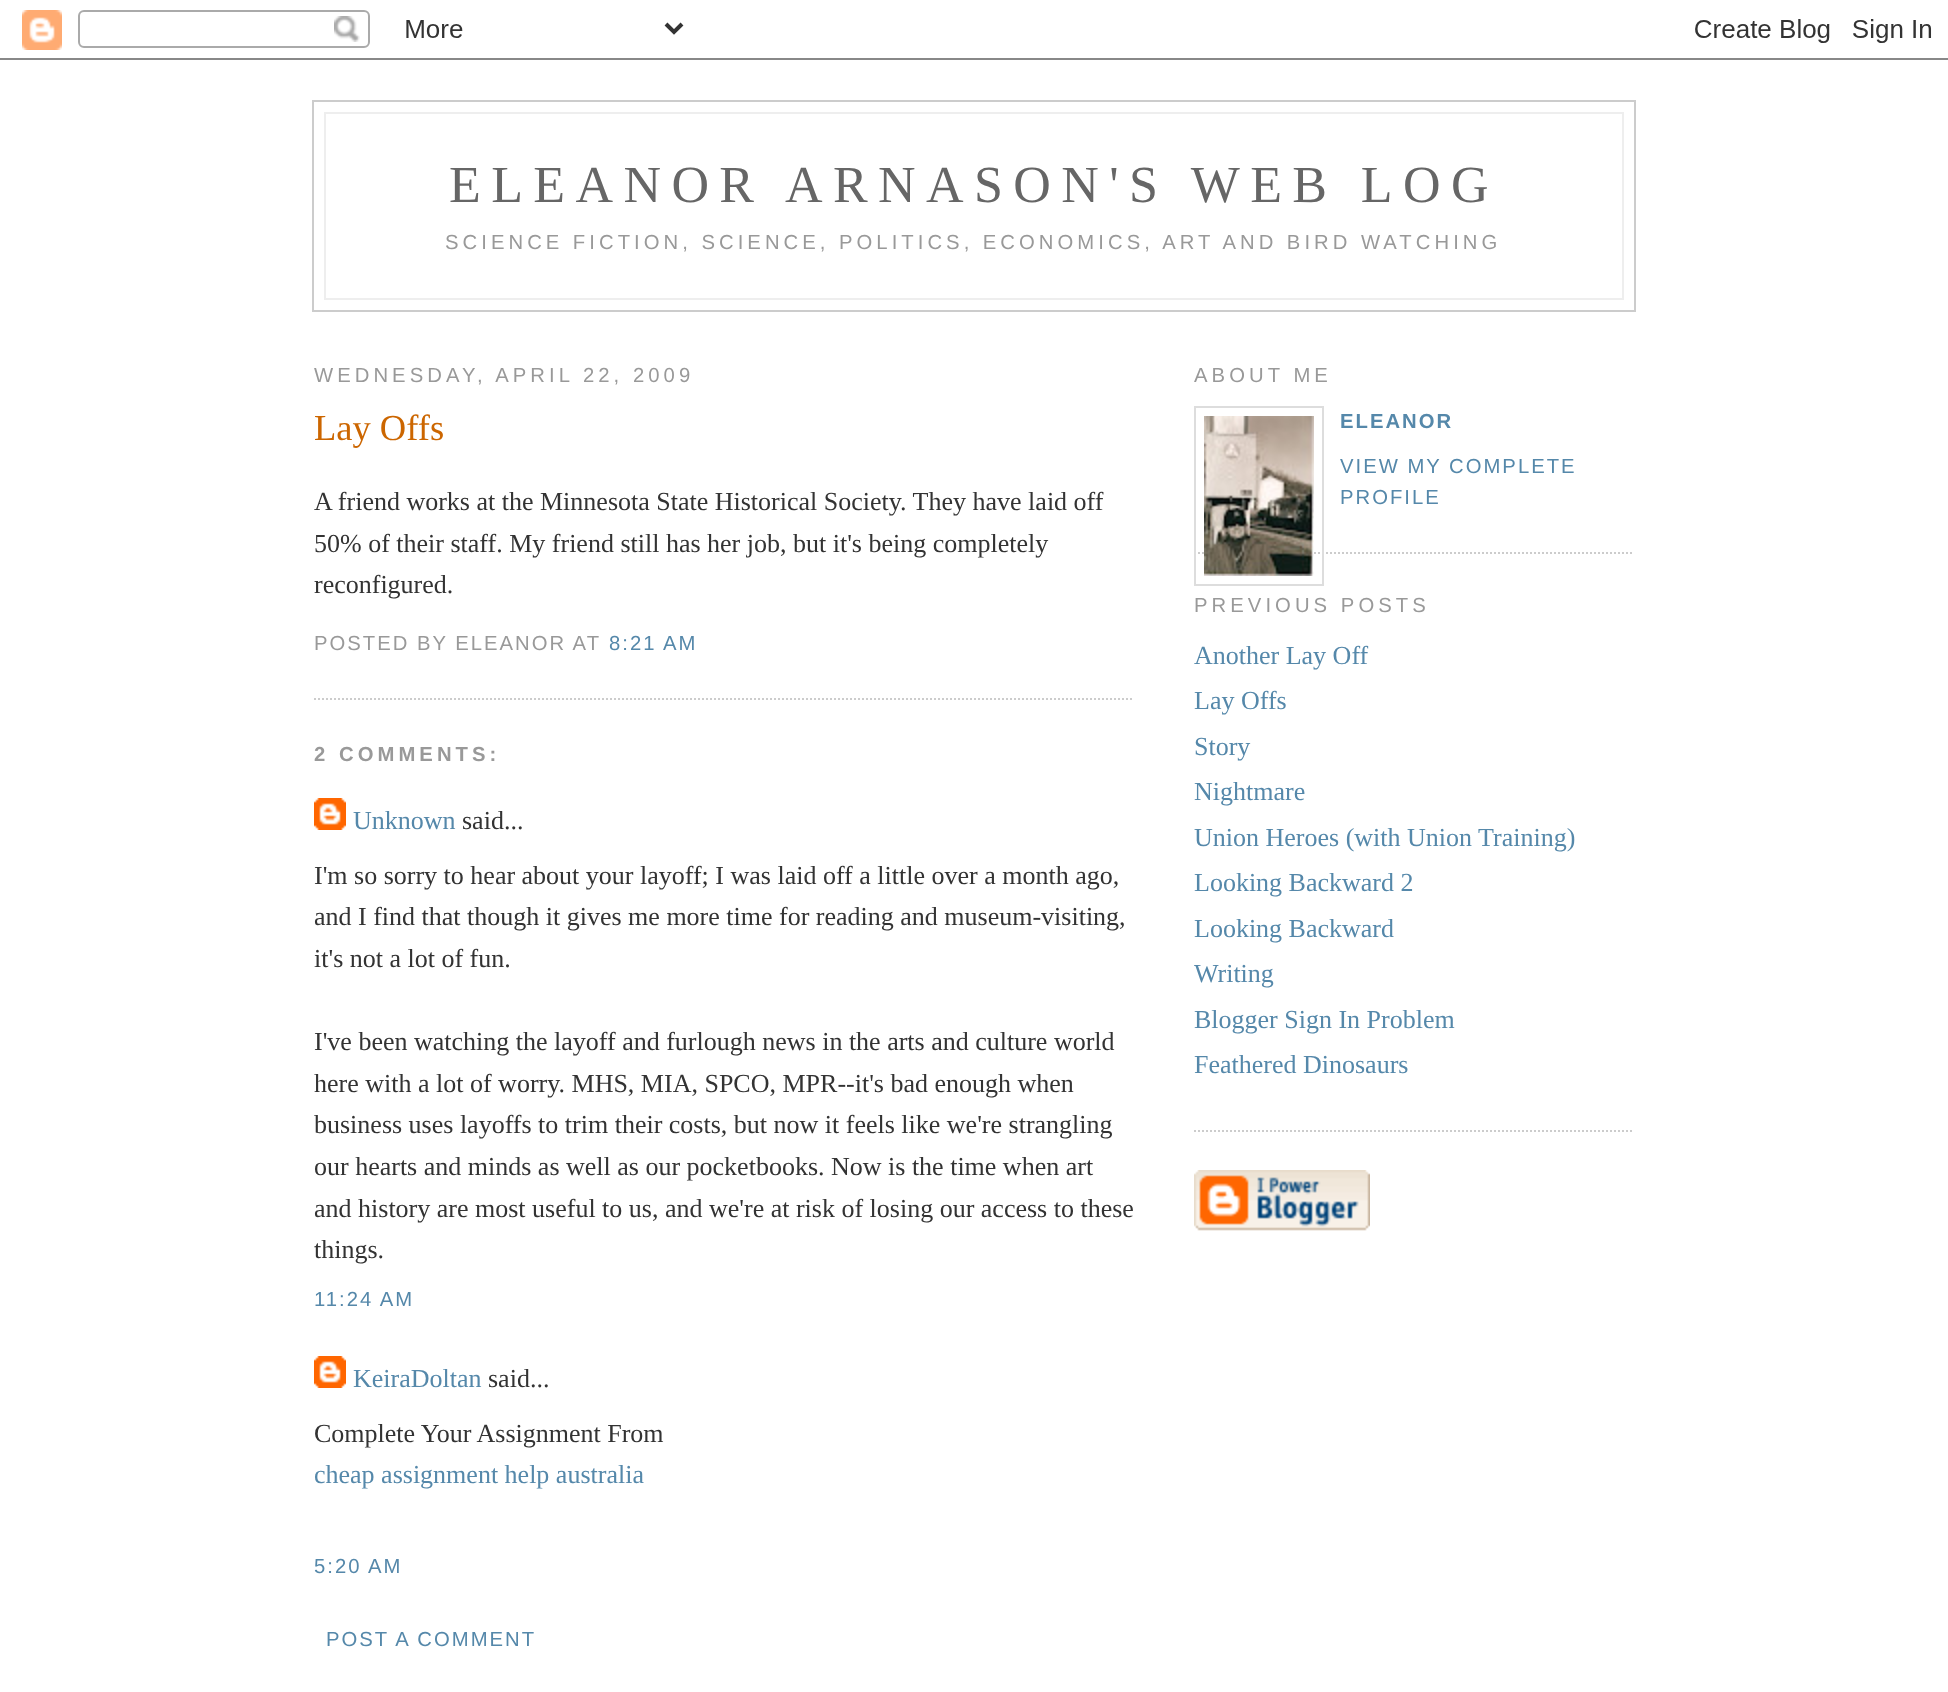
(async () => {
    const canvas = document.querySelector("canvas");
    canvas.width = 1948;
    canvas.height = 1692;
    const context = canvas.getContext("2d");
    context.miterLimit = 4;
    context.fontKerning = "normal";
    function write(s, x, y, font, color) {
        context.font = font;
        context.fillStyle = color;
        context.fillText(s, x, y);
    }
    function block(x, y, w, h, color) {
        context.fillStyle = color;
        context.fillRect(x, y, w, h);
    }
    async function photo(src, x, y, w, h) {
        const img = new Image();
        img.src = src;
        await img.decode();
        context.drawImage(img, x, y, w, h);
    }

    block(0, 0, 1948, 1692, "rgb(255, 255, 255)");
    await photo("media/1.png", 0, 10, 1948, 50);
    context.strokeStyle = "rgb(204, 204, 204)";
    context.lineWidth = 2;
    context.strokeRect(313, 101, 1322, 210);
    block(324, 112, 1300, 2, "rgb(238, 238, 238)");
    block(1622, 112, 2, 188, "rgb(238, 238, 238)");
    block(324, 112, 2, 118, "rgb(238, 238, 238)");
    context.letterSpacing = "10.4px";
    write("ELEANOR ARNASON'S WEB LOG", 449, 202, "52px Liberation Serif", "rgb(102, 102, 102)");
    block(324, 298, 1300, 2, "rgb(238, 238, 238)");
    block(324, 230, 2, 70, "rgb(238, 238, 238)");
    context.letterSpacing = "4.05px";
    context.wordSpacing = "-0.25px";
    write("SCIENCE FICTION, SCIENCE, POLITICS, ECONOMICS, ART AND BIRD WATCHING", 445, 249, "20.28px Liberation Sans", "rgb(153, 153, 153)");
    context.wordSpacing = "0px";
    write("WEDNESDAY, APRIL 22, 2009", 314, 382, "20.28px Liberation Sans", "rgb(153, 153, 153)");
    context.beginPath();
    context.moveTo(314, 699);
    context.lineTo(1134, 699);
    context.setLineDash([2, 2]);
    context.stroke();
    context.letterSpacing = "0px";
    write("Lay Offs", 314, 440, "36.5px Liberation Serif", "rgb(204, 102, 0)");
    write("A friend works at the Minnesota State Historical Society. They have laid off", 314, 510, "26px Liberation Serif", "rgb(51, 51, 51)");
    write("50% of their staff. My friend still has her job, but it's being completely", 314, 552, "26px Liberation Serif", "rgb(51, 51, 51)");
    write("reconfigured.", 314, 593, "26px Liberation Serif", "rgb(51, 51, 51)");
    context.letterSpacing = "2px";
    write("POSTED BY ELEANOR AT", 314, 650, "20.28px Liberation Sans", "rgb(153, 153, 153)");
    write("8:21 AM", 609, 650, "20.28px Liberation Sans", "rgb(85, 136, 170)");
    context.letterSpacing = "4.05px";
    write("2 COMMENTS:", 314, 761, "bold 20.28px Liberation Sans", "rgb(153, 153, 153)");
    await photo("media/2.png", 314, 798, 32, 32);
    context.letterSpacing = "0px";
    write("Unknown", 353, 829, "26px Liberation Serif", "rgb(85, 136, 170)");
    write("said...", 462, 829, "26px Liberation Serif", "rgb(51, 51, 51)");
    write("I'm so sorry to hear about your layoff; I was laid off a little over a month ago,", 314, 884, "26px Liberation Serif", "rgb(51, 51, 51)");
    write("and I find that though it gives me more time for reading and museum-visiting,", 314, 925, "26px Liberation Serif", "rgb(51, 51, 51)");
    write("it's not a lot of fun.", 314, 967, "26px Liberation Serif", "rgb(51, 51, 51)");
    write("I've been watching the layoff and furlough news in the arts and culture world", 314, 1050, "26px Liberation Serif", "rgb(51, 51, 51)");
    write("here with a lot of worry. MHS, MIA, SPCO, MPR--it's bad enough when", 314, 1092, "26px Liberation Serif", "rgb(51, 51, 51)");
    write("business uses layoffs to trim their costs, but now it feels like we're strangling", 314, 1133, "26px Liberation Serif", "rgb(51, 51, 51)");
    write("our hearts and minds as well as our pocketbooks. Now is the time when art", 314, 1175, "26px Liberation Serif", "rgb(51, 51, 51)");
    write("and history are most useful to us, and we're at risk of losing our access to these", 314, 1217, "26px Liberation Serif", "rgb(51, 51, 51)");
    write("things.", 314, 1258, "26px Liberation Serif", "rgb(51, 51, 51)");
    context.letterSpacing = "2px";
    write("11:24 AM", 314, 1306, "20.28px Liberation Sans", "rgb(85, 136, 170)");
    await photo("media/2.png", 314, 1356, 32, 32);
    context.letterSpacing = "0px";
    write("KeiraDoltan", 353, 1387, "26px Liberation Serif", "rgb(85, 136, 170)");
    write("said...", 488, 1387, "26px Liberation Serif", "rgb(51, 51, 51)");
    write("Complete Your Assignment From", 314, 1442, "26px Liberation Serif", "rgb(51, 51, 51)");
    write("cheap assignment help australia", 314, 1483, "26px Liberation Serif", "rgb(85, 136, 170)");
    context.letterSpacing = "2px";
    write("5:20 AM", 314, 1573, "20.28px Liberation Sans", "rgb(85, 136, 170)");
    write("POST A COMMENT", 326, 1646, "20.28px Liberation Sans", "rgb(85, 136, 170)");
    context.beginPath();
    context.moveTo(1194, 553);
    context.lineTo(1634, 553);
    context.stroke();
    context.letterSpacing = "4.05px";
    write("ABOUT ME", 1194, 382, "20.28px Liberation Sans", "rgb(153, 153, 153)");
    context.strokeStyle = "rgb(221, 221, 221)";
    context.setLineDash([]);
    context.strokeRect(1195, 407, 128, 178);
    await photo("media/3.png", 1204, 416, 110, 160);
    context.letterSpacing = "2px";
    write("ELEANOR", 1340, 428, "bold 20.28px Liberation Sans", "rgb(85, 136, 170)");
    write("VIEW MY COMPLETE", 1340, 473, "20.28px Liberation Sans", "rgb(85, 136, 170)");
    write("PROFILE", 1340, 504, "20.28px Liberation Sans", "rgb(85, 136, 170)");
    context.letterSpacing = "4.05px";
    write("PREVIOUS POSTS", 1194, 612, "20.28px Liberation Sans", "rgb(153, 153, 153)");
    context.beginPath();
    context.moveTo(1194, 1131);
    context.lineTo(1634, 1131);
    context.strokeStyle = "rgb(204, 204, 204)";
    context.setLineDash([2, 2]);
    context.stroke();
    context.letterSpacing = "0px";
    write("Another Lay Off", 1194, 664, "26px Liberation Serif", "rgb(85, 136, 170)");
    write("Lay Offs", 1194, 709, "26px Liberation Serif", "rgb(85, 136, 170)");
    write("Story", 1194, 755, "26px Liberation Serif", "rgb(85, 136, 170)");
    write("Nightmare", 1194, 800, "26px Liberation Serif", "rgb(85, 136, 170)");
    write("Union Heroes (with Union Training)", 1194, 846, "26px Liberation Serif", "rgb(85, 136, 170)");
    write("Looking Backward 2", 1194, 891, "26px Liberation Serif", "rgb(85, 136, 170)");
    write("Looking Backward", 1194, 937, "26px Liberation Serif", "rgb(85, 136, 170)");
    write("Writing", 1194, 982, "26px Liberation Serif", "rgb(85, 136, 170)");
    write("Blogger Sign In Problem", 1194, 1028, "26px Liberation Serif", "rgb(85, 136, 170)");
    write("Feathered Dinosaurs", 1194, 1073, "26px Liberation Serif", "rgb(85, 136, 170)");
    await photo("media/4.png", 1194, 1170, 176, 61);
})();
